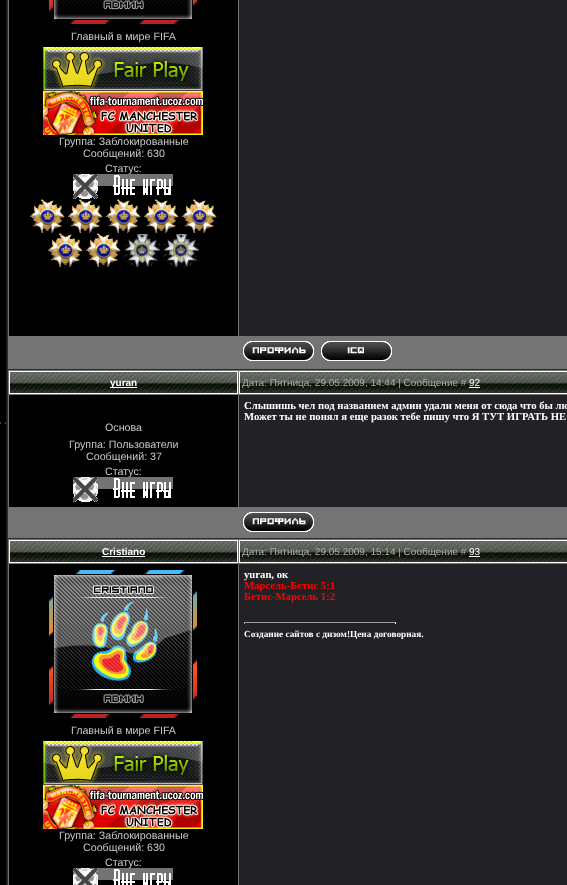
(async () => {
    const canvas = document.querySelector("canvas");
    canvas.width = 567;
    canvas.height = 885;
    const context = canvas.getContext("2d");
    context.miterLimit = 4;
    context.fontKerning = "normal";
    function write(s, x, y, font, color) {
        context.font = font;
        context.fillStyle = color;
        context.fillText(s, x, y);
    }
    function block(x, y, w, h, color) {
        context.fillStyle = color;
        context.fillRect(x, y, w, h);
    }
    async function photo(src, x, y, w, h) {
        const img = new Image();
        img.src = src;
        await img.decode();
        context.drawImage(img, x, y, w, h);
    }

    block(0, 0, 567, 885, "rgb(0, 0, 0)");
    await photo("media/1.png", 0, 422, 6, 2);
    context.fillStyle = "rgb(44, 44, 44)";
    context.beginPath();
    context.rect(6.5, -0.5, 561, 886);
    context.fill();
    context.strokeStyle = "rgb(26, 26, 26)";
    context.stroke();
    block(8, 0, 559, 369, "rgb(116, 116, 116)");
    block(9, 0, 229, 336, "rgb(0, 0, 0)");
    await photo("media/2.png", 49, 0, 148, 24);
    write("Главный в мире FIFA", 71, 40, "10.7px Liberation Sans", "rgb(200, 200, 200)");
    await photo("media/3.png", 43, 47, 160, 44);
    await photo("media/4.png", 43, 91, 160, 44);
    write("Группа: Заблокированные", 59, 145, "10.7px Liberation Sans", "rgb(200, 200, 200)");
    write("Сообщений: 630", 83, 157, "10.7px Liberation Sans", "rgb(200, 200, 200)");
    write("Статус:", 105, 172, "10.7px Liberation Sans", "rgb(200, 200, 200)");
    await photo("media/5.png", 73, 174, 100, 25);
    await photo("media/6.png", 30, 199, 35, 34);
    await photo("media/6.png", 68, 199, 35, 34);
    await photo("media/6.png", 106, 199, 35, 34);
    await photo("media/6.png", 144, 199, 35, 34);
    await photo("media/6.png", 182, 199, 35, 34);
    await photo("media/6.png", 48, 233, 35, 34);
    await photo("media/6.png", 86, 233, 35, 34);
    await photo("media/7.png", 124, 234, 36, 33);
    await photo("media/7.png", 163, 234, 36, 33);
    block(239, 0, 328, 336, "rgb(34, 34, 38)");
    await photo("media/8.png", 243, 341, 71, 20);
    await photo("media/9.png", 321, 341, 71, 20);
    block(8, 370, 559, 168, "rgb(116, 116, 116)");
    await photo("media/10.png", 10, 372, 227, 21);
    context.strokeStyle = "rgb(255, 255, 255)";
    context.strokeRect(9.5, 371.5, 228, 22);
    block(110, 387, 27, 1, "rgb(255, 255, 255)");
    write("yuran", 110, 386, "bold 10px Liberation Sans", "rgb(255, 255, 255)");
    await photo("media/11.png", 240, 372, 327, 21);
    context.strokeRect(239.5, 371.5, 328, 22);
    write("Дата: Пятница, 29.05.2009, 14:44 | Сообщение #", 242, 386, "10px Liberation Sans", "rgb(172, 172, 172)");
    write("92", 469, 386, "10px Liberation Sans", "rgb(255, 255, 255)");
    block(469, 387, 11, 1, "rgb(255, 255, 255)");
    block(239, 395, 328, 112, "rgb(34, 34, 38)");
    write("Cлышишь чел под названием админ удали меня от сюда что бы лю", 244, 409, "bold 10.7px Liberation Serif", "rgb(255, 255, 255)");
    write("Может ты не понял я еще разок тебе пишу что Я ТУТ ИГРАТЬ НЕ", 244, 420, "bold 10.7px Liberation Serif", "rgb(255, 255, 255)");
    block(9, 395, 229, 112, "rgb(0, 0, 0)");
    write("Основа", 105, 431, "10.7px Liberation Sans", "rgb(200, 200, 200)");
    write("Группа: Пользователи", 69, 448, "10.7px Liberation Sans", "rgb(200, 200, 200)");
    write("Сообщений: 37", 86, 460, "10.7px Liberation Sans", "rgb(200, 200, 200)");
    write("Статус:", 105, 475, "10.7px Liberation Sans", "rgb(200, 200, 200)");
    await photo("media/5.png", 73, 477, 100, 25);
    await photo("media/8.png", 243, 512, 71, 20);
    block(8, 539, 559, 346, "rgb(116, 116, 116)");
    await photo("media/10.png", 10, 541, 227, 21);
    context.strokeRect(9.5, 540.5, 228, 22);
    write("Cristiano", 102, 555, "bold 10px Liberation Sans", "rgb(255, 255, 255)");
    block(102, 556, 43, 1, "rgb(255, 255, 255)");
    await photo("media/11.png", 240, 541, 327, 21);
    context.strokeRect(239.5, 540.5, 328, 22);
    write("Дата: Пятница, 29.05.2009, 15:14 | Сообщение #", 242, 555, "10px Liberation Sans", "rgb(172, 172, 172)");
    write("93", 469, 555, "10px Liberation Sans", "rgb(255, 255, 255)");
    block(469, 556, 11, 1, "rgb(255, 255, 255)");
    block(239, 564, 328, 321, "rgb(34, 34, 38)");
    write("yuran, ок", 244, 578, "bold 10.7px Liberation Serif", "rgb(255, 255, 255)");
    write("Марсель-Бетис 5:1", 244, 589, "bold 10.7px Liberation Serif", "rgb(255, 0, 0)");
    write("Бетис-Марсель 1:2", 244, 600, "bold 10.7px Liberation Serif", "rgb(255, 0, 0)");
    block(244, 622, 152, 1, "rgb(159, 159, 159)");
    block(395, 622, 1, 2, "rgb(238, 238, 238)");
    block(244, 622, 1, 2, "rgb(159, 159, 159)");
    write("Создание сайтов с дизом!Цена договорная.", 244, 637, "bold 9.3px Liberation Serif", "rgb(255, 255, 255)");
    block(9, 564, 229, 321, "rgb(0, 0, 0)");
    await photo("media/12.png", 49, 570, 148, 148);
    write("Главный в мире FIFA", 71, 734, "10.7px Liberation Sans", "rgb(200, 200, 200)");
    await photo("media/3.png", 43, 741, 160, 44);
    await photo("media/4.png", 43, 785, 160, 44);
    write("Группа: Заблокированные", 59, 839, "10.7px Liberation Sans", "rgb(200, 200, 200)");
    write("Сообщений: 630", 83, 851, "10.7px Liberation Sans", "rgb(200, 200, 200)");
    write("Статус:", 105, 866, "10.7px Liberation Sans", "rgb(200, 200, 200)");
    await photo("media/13.png", 73, 868, 100, 17);
})();
